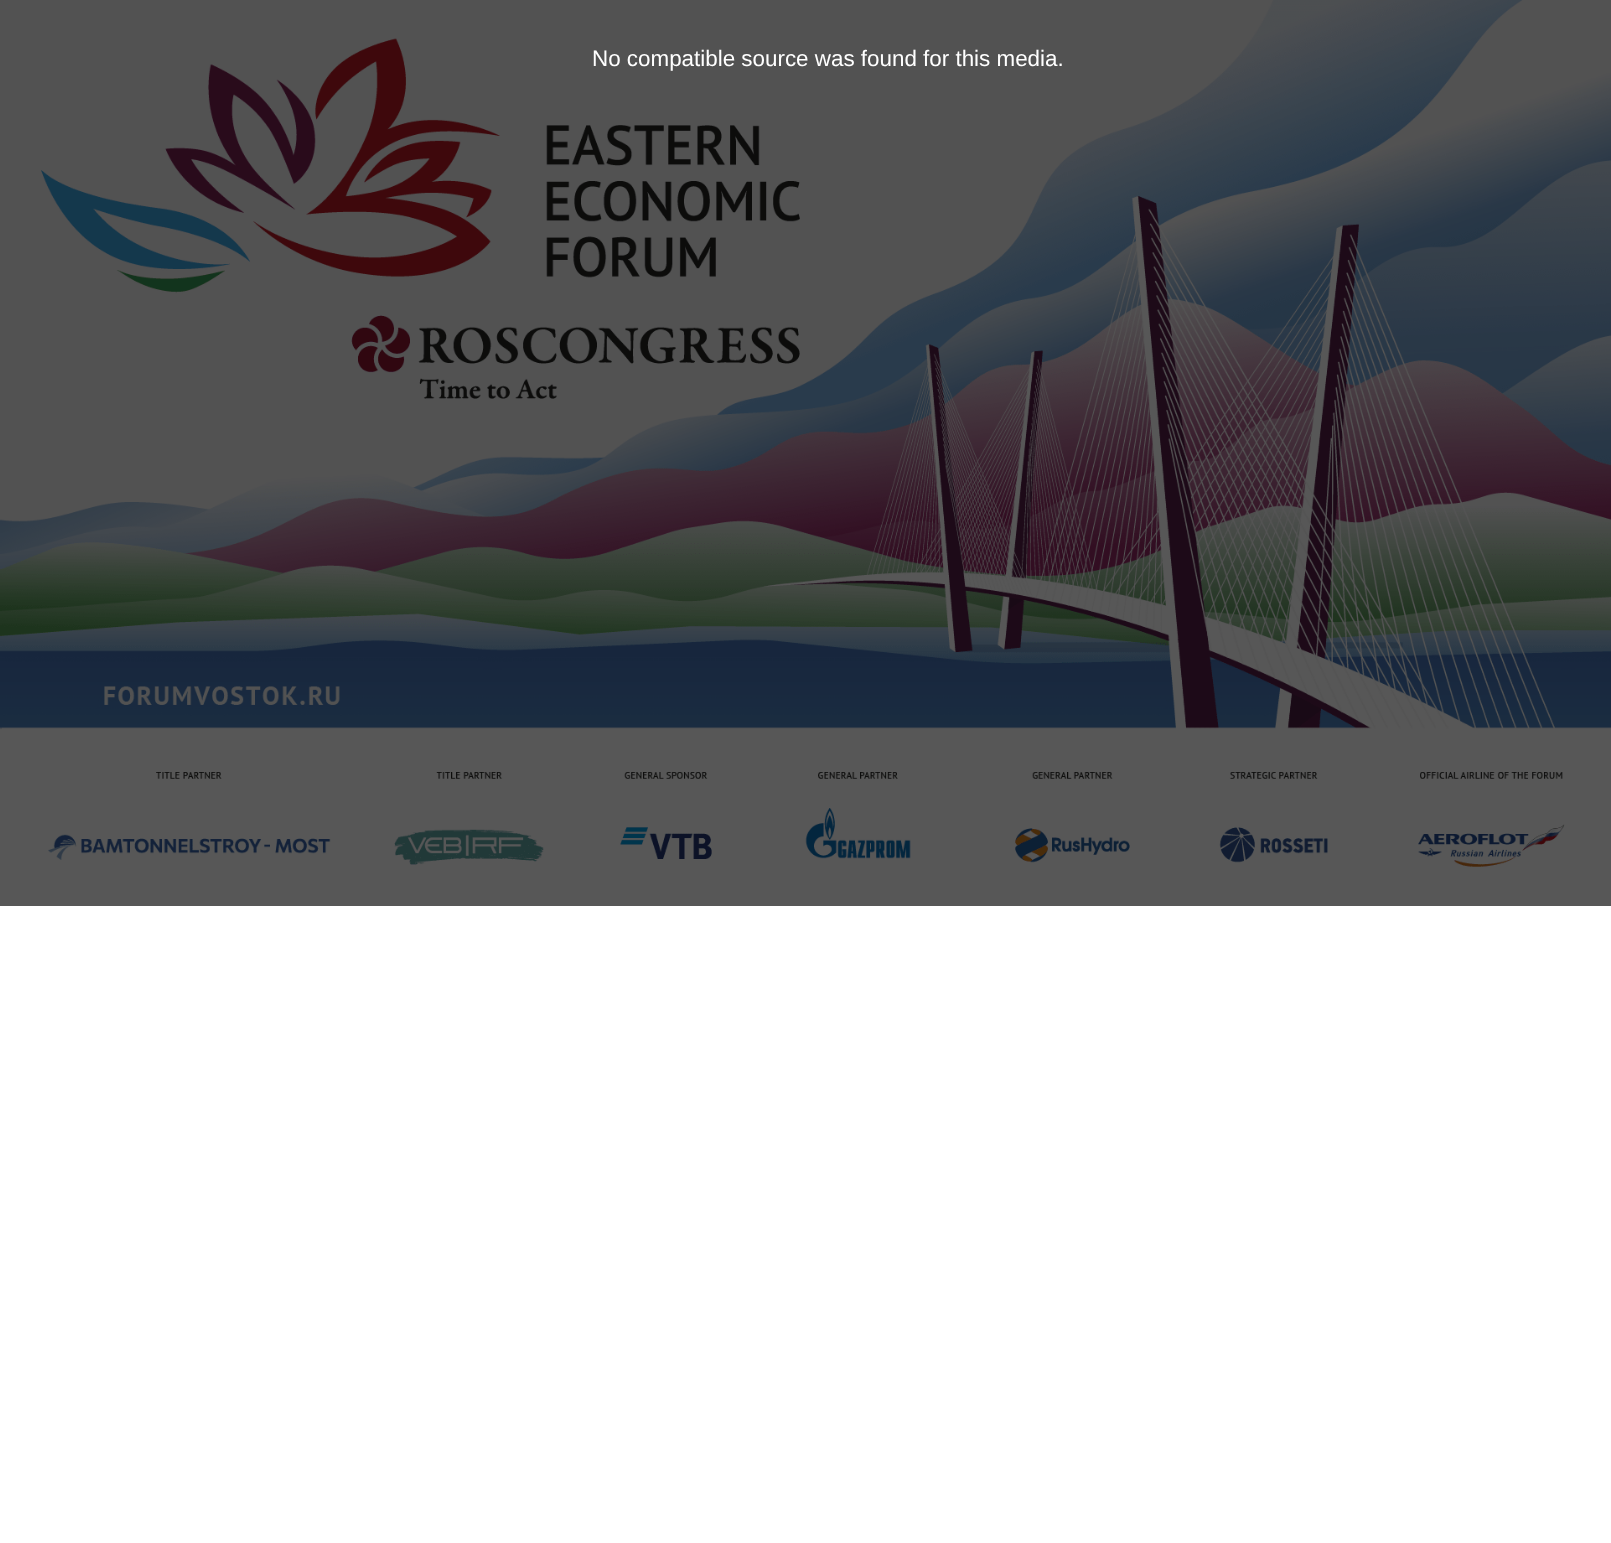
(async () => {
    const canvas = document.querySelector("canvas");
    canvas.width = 1611;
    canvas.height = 1543;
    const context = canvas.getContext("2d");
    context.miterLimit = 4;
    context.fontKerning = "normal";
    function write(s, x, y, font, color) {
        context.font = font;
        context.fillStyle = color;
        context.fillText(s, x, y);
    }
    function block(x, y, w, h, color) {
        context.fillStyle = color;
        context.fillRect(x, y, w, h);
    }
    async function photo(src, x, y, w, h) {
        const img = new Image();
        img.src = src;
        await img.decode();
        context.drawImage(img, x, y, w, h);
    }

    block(0, 0, 1611, 1543, "rgb(255, 255, 255)");
    await photo("media/1.png", 0, 0, 1611, 906);
    await photo("media/2.png", 1, 22, 1560, 845);
    write("No compatible source was found for this media.", 592, 66, "22.4px Liberation Sans", "rgb(255, 255, 255)");
})();
